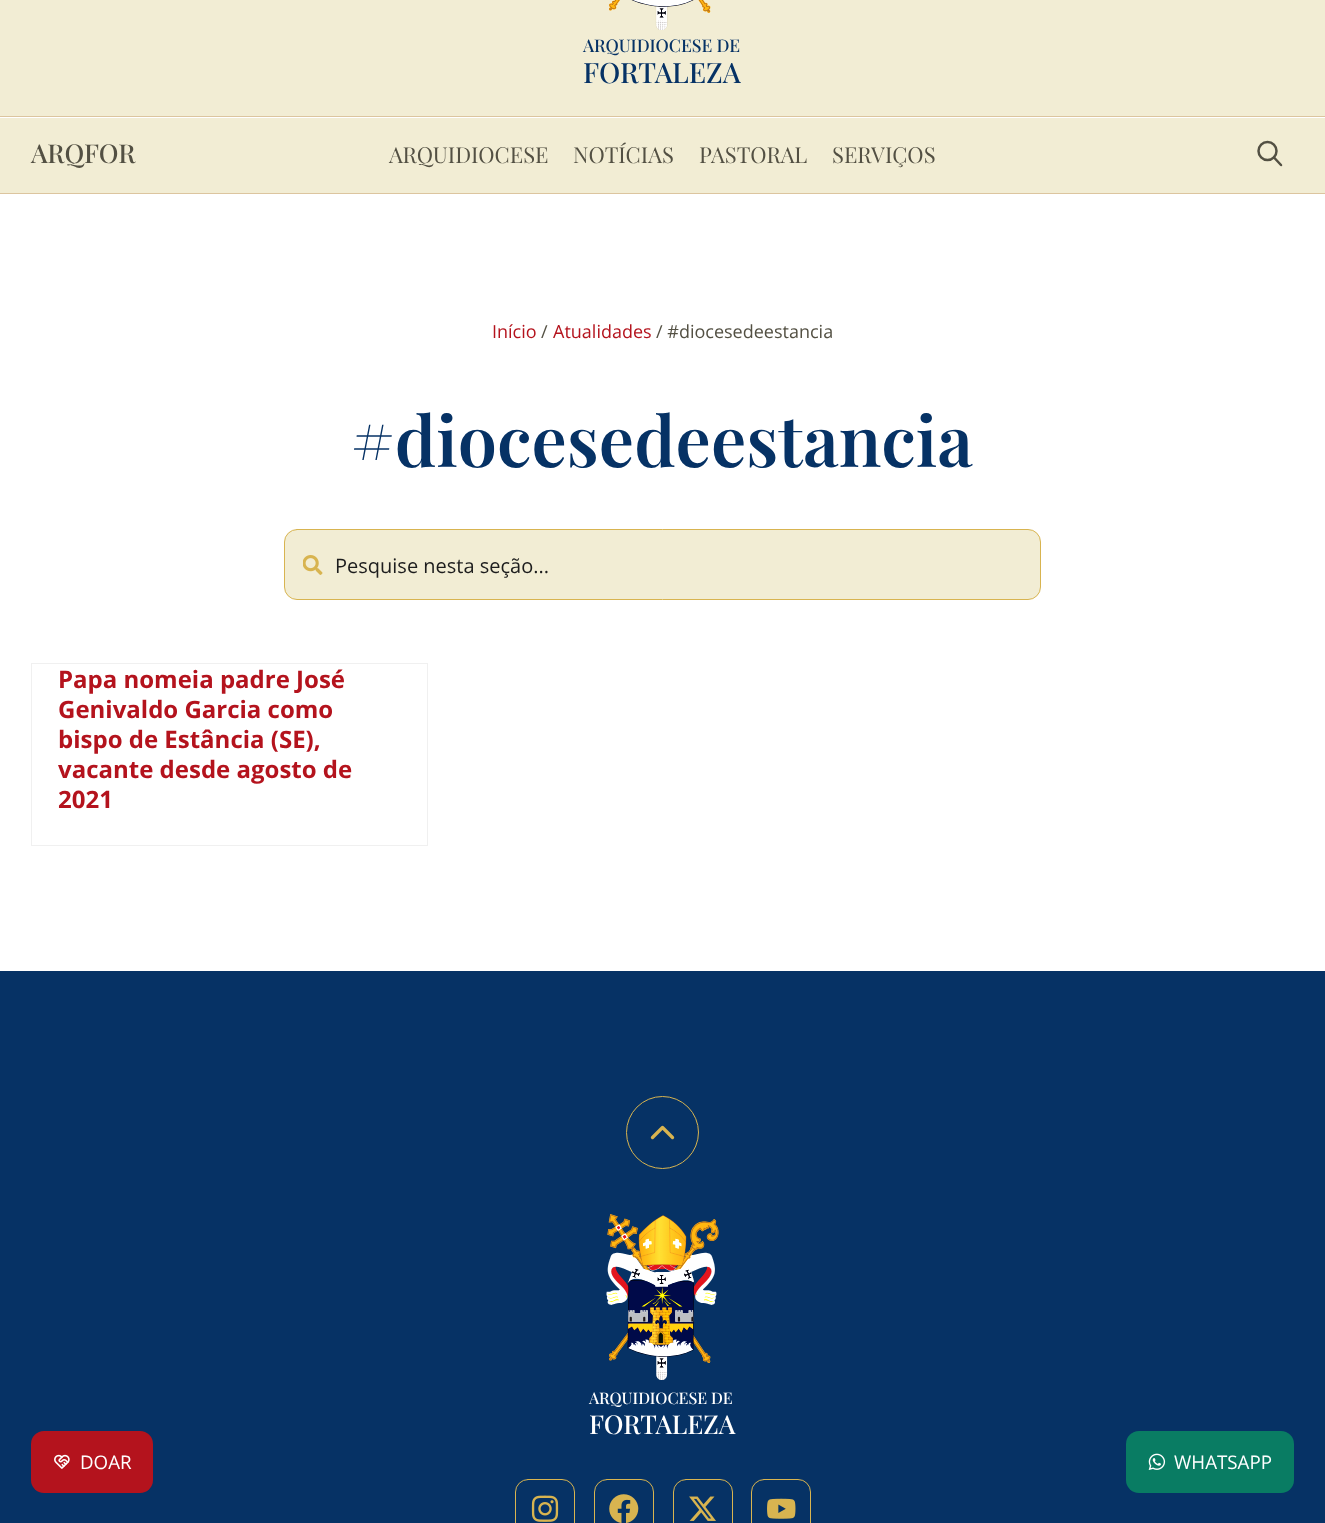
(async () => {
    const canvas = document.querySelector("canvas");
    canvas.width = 1325;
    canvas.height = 1523;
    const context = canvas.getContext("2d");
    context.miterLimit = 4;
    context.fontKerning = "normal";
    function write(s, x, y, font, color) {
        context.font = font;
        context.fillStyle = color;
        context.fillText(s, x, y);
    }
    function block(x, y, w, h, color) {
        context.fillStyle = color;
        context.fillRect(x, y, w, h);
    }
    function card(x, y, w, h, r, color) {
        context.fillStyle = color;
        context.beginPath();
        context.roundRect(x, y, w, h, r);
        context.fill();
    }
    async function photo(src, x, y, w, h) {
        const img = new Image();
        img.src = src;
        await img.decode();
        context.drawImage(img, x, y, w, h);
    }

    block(0, 0, 1325, 1523, "rgb(255, 255, 255)");
    block(0, 0, 1325, 116, "rgb(242, 237, 212)");
    await photo("media/1.png", 609, 0, 102, 30);
    write("ARQUIDIOCESE DE", 583, 52, "500 17.5px Playfair Display", "rgb(6, 50, 101)");
    write("FORTALEZA", 583, 83, "500 28px Playfair Display", "rgb(6, 50, 101)");
    block(0, 118, 1325, 75, "rgb(242, 237, 212)");
    block(0, 116, 1325, 1, "rgb(220, 197, 159)");
    block(0, 193, 1325, 1, "rgb(220, 197, 159)");
    write("ARQFOR", 31, 163, "500 26px Playfair Display", "rgb(83, 80, 67)");
    write("ARQUIDIOCESE", 389, 163, "22px Playfair Display", "rgb(83, 80, 67)");
    write("NOTÍCIAS", 573, 163, "22px Playfair Display", "rgb(83, 80, 67)");
    write("PASTORAL", 699, 163, "22px Playfair Display", "rgb(83, 80, 67)");
    write("SERVIÇOS", 832, 163, "22px Playfair Display", "rgb(83, 80, 67)");
    context.beginPath();
    context.arc(1267.5, 151, 9, 0, Math.PI * 2);
    context.strokeStyle = "rgb(83, 80, 67)";
    context.lineWidth = 2.5;
    context.stroke();
    context.beginPath();
    context.moveTo(1281, 165);
    context.lineTo(1274, 157.5);
    context.lineCap = "round";
    context.lineJoin = "round";
    context.stroke();
    write("Início", 492, 338, "18px Open Sans", "rgb(180, 19, 29)");
    write("/", 541, 338, "18px Open Sans", "rgb(83, 80, 67)");
    write("Atualidades", 553, 338, "18px Open Sans", "rgb(180, 19, 29)");
    write("/ #diocesedeestancia", 656, 338, "18px Open Sans", "rgb(83, 80, 67)");
    write("#diocesedeestancia", 351, 467, "600 70px Playfair Display", "rgb(6, 50, 101)");
    context.fillStyle = "rgb(242, 237, 212)";
    context.beginPath();
    context.roundRect(284.5, 529.5, 756, 70, 12.5);
    context.fill();
    context.strokeStyle = "rgb(216, 180, 80)";
    context.lineWidth = 1;
    context.lineJoin = "miter";
    context.stroke();
    await photo("media/2.png", 303, 555, 20, 20);
    write("Pesquise nesta seção...", 335, 573, "20px Open Sans", "rgb(29, 29, 29)");
    context.strokeStyle = "rgb(240, 240, 240)";
    context.strokeRect(31.5, 663.5, 396, 182);
    write("Papa nomeia padre José", 58, 688, "bold 24px Open Sans", "rgb(180, 19, 29)");
    write("Genivaldo Garcia como", 58, 718, "bold 24px Open Sans", "rgb(180, 19, 29)");
    write("bispo de Estância (SE),", 58, 748, "bold 24px Open Sans", "rgb(180, 19, 29)");
    write("vacante desde agosto de", 58, 778, "bold 24px Open Sans", "rgb(180, 19, 29)");
    write("2021", 58, 808, "bold 24px Open Sans", "rgb(180, 19, 29)");
    block(0, 971, 1325, 552, "rgb(6, 50, 101)");
    context.beginPath();
    context.arc(662.5, 1132.5, 36, 0, Math.PI * 2);
    context.strokeStyle = "rgb(216, 180, 80)";
    context.stroke();
    context.beginPath();
    context.moveTo(652.5, 1137.5);
    context.lineTo(662.5, 1127.5);
    context.lineTo(672.5, 1137.5);
    context.lineWidth = 3.3;
    context.lineJoin = "round";
    context.stroke();
    await photo("media/3.png", 606, 1214, 113, 166);
    write("ARQUIDIOCESE DE", 589, 1404, "500 16px Playfair Display", "rgb(255, 255, 255)");
    write("FORTALEZA", 589, 1434, "500 26px Playfair Display", "rgb(255, 255, 255)");
    card(31, 1431, 122, 62, 13, "rgb(180, 19, 29)");
    await photo("media/4.png", 54, 1454, 16, 15);
    write("DOAR", 80, 1469, "18.75px Open Sans", "rgb(255, 255, 255)");
    card(1126, 1431, 168, 62, 13, "rgb(9, 124, 99)");
    await photo("media/5.png", 1148, 1453, 18, 17);
    write("WHATSAPP", 1174, 1469, "18.75px Open Sans", "rgb(255, 255, 255)");
    context.beginPath();
    context.roundRect(515.5, 1479.5, 59, 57, 12.5);
    context.lineWidth = 1;
    context.lineJoin = "miter";
    context.stroke();
    await photo("media/6.png", 531, 1495, 28, 27);
    context.beginPath();
    context.roundRect(594.5, 1479.5, 59, 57, 12.5);
    context.stroke();
    await photo("media/7.png", 609, 1494, 30, 29);
    context.beginPath();
    context.roundRect(673.5, 1479.5, 59, 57, 12.5);
    context.stroke();
    await photo("media/8.png", 689, 1496, 27, 25);
    context.beginPath();
    context.roundRect(751.5, 1479.5, 59, 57, 12.5);
    context.stroke();
    await photo("media/9.png", 767, 1498, 29, 21);
})();
